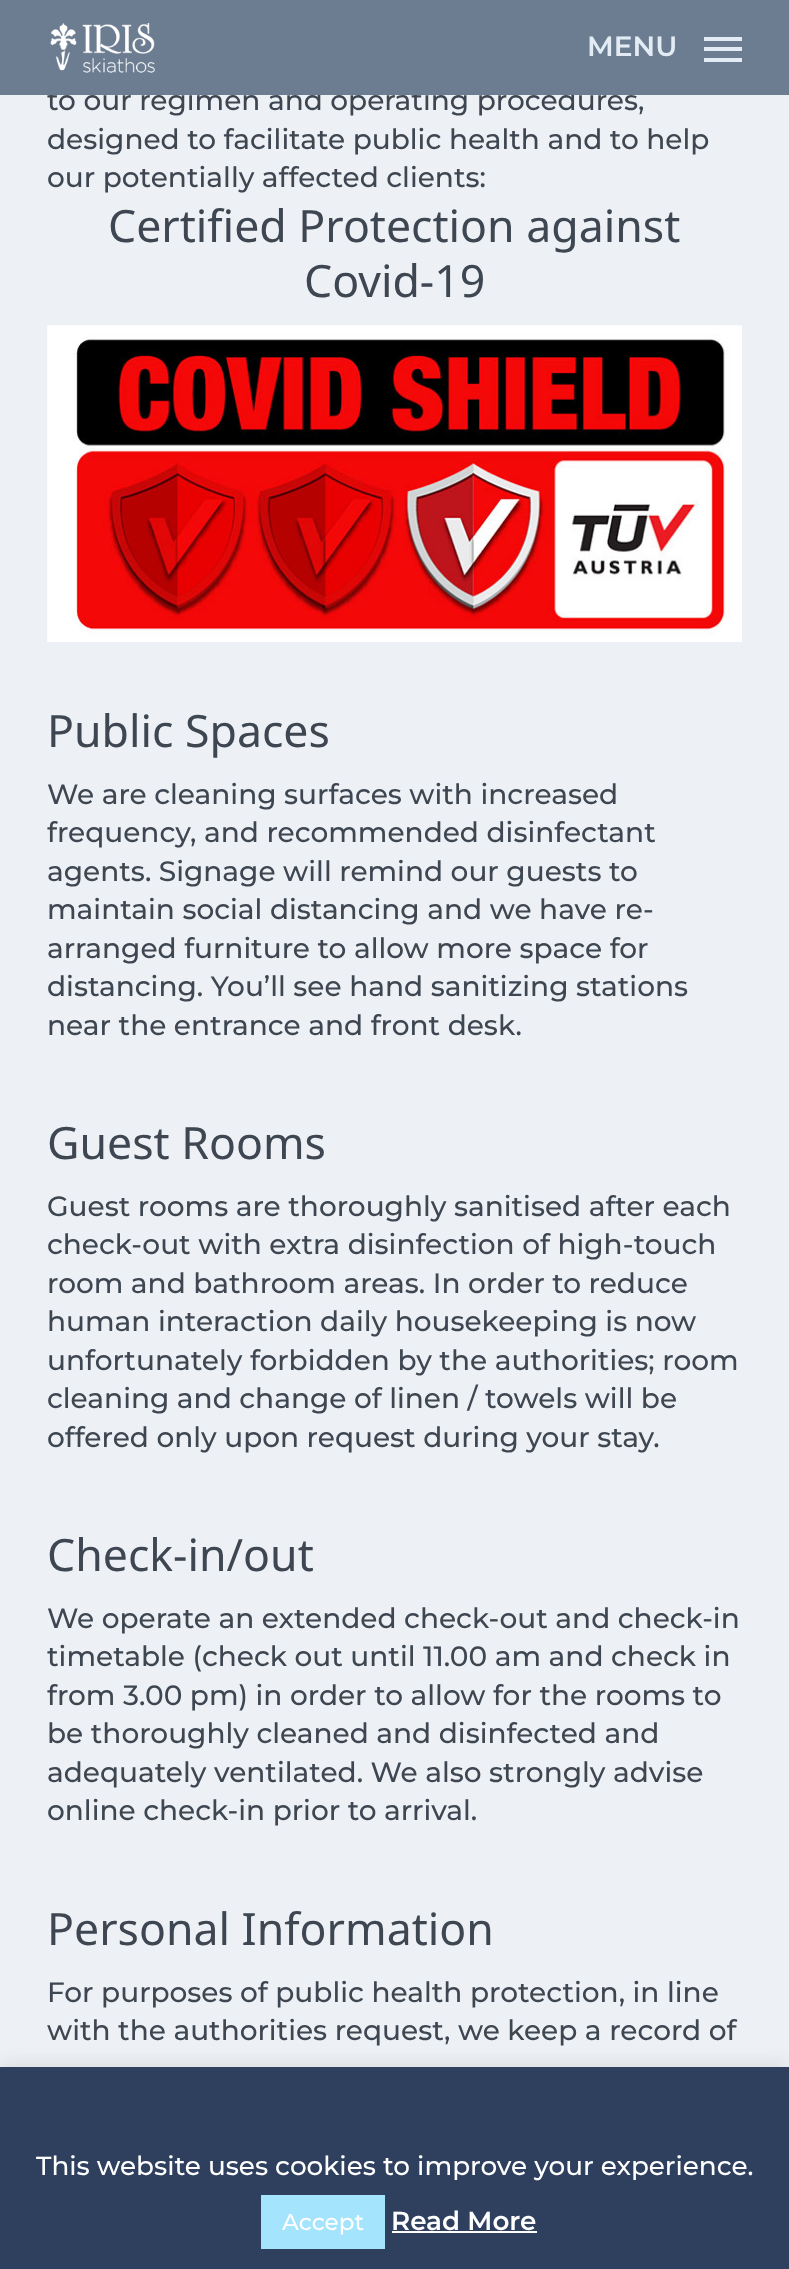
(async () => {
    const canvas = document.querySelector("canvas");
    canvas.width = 789;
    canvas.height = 2269;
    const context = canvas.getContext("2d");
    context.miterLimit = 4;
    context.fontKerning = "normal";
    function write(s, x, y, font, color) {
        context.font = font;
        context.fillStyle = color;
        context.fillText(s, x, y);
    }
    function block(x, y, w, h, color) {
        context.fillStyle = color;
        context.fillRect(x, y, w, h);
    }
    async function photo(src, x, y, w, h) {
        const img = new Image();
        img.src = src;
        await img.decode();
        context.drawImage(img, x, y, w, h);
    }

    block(0, 0, 789, 2269, "rgb(237, 240, 244)");
    write("to our regimen and operating procedures,", 47, 110, "500 28px Montserrat", "rgb(61, 70, 81)");
    block(0, 0, 789, 95, "rgb(109, 125, 145)");
    await photo("media/1.png", 50, 23, 105, 50);
    write("MENU", 587, 56, "600 28px Montserrat", "rgb(227, 236, 244)");
    block(704, 37, 38, 4, "rgb(227, 236, 244)");
    block(704, 58, 38, 4, "rgb(227, 236, 244)");
    block(704, 47, 38, 4, "rgb(227, 236, 244)");
    write("designed to facilitate public health and to help", 47, 149, "500 28px Montserrat", "rgb(61, 70, 81)");
    write("our potentially affected clients:", 47, 187, "500 28px Montserrat", "rgb(61, 70, 81)");
    write("Certified Protection against", 108, 242, "44.6px Noto Sans", "rgb(61, 70, 81)");
    write("Covid-19", 304, 297, "44.6px Noto Sans", "rgb(61, 70, 81)");
    await photo("media/2.png", 47, 325, 695, 317);
    write("Public Spaces", 47, 747, "44.6px Noto Sans", "rgb(61, 70, 81)");
    write("We are cleaning surfaces with increased", 47, 804, "500 28px Montserrat", "rgb(61, 70, 81)");
    write("frequency, and recommended disinfectant", 47, 842, "500 28px Montserrat", "rgb(61, 70, 81)");
    write("agents. Signage will remind our guests to", 47, 881, "500 28px Montserrat", "rgb(61, 70, 81)");
    write("maintain social distancing and we have re-", 47, 919, "500 28px Montserrat", "rgb(61, 70, 81)");
    write("arranged furniture to allow more space for", 47, 958, "500 28px Montserrat", "rgb(61, 70, 81)");
    write("distancing. You’ll see hand sanitizing stations", 47, 996, "500 28px Montserrat", "rgb(61, 70, 81)");
    write("near the entrance and front desk.", 47, 1035, "500 28px Montserrat", "rgb(61, 70, 81)");
    write("Guest Rooms", 47, 1159, "44.6px Noto Sans", "rgb(61, 70, 81)");
    write("Guest rooms are thoroughly sanitised after each", 47, 1216, "500 28px Montserrat", "rgb(61, 70, 81)");
    write("check-out with extra disinfection of high-touch", 47, 1254, "500 28px Montserrat", "rgb(61, 70, 81)");
    write("room and bathroom areas. In order to reduce", 47, 1293, "500 28px Montserrat", "rgb(61, 70, 81)");
    write("human interaction daily housekeeping is now", 47, 1331, "500 28px Montserrat", "rgb(61, 70, 81)");
    write("unfortunately forbidden by the authorities; room", 47, 1370, "500 28px Montserrat", "rgb(61, 70, 81)");
    write("cleaning and change of linen / towels will be", 47, 1408, "500 28px Montserrat", "rgb(61, 70, 81)");
    write("offered only upon request during your stay.", 47, 1447, "500 28px Montserrat", "rgb(61, 70, 81)");
    write("Check-in/out", 47, 1571, "44.6px Noto Sans", "rgb(61, 70, 81)");
    write("We operate an extended check-out and check-in", 47, 1628, "500 28px Montserrat", "rgb(61, 70, 81)");
    write("timetable (check out until 11.00 am and check in", 47, 1666, "500 28px Montserrat", "rgb(61, 70, 81)");
    write("from 3.00 pm) in order to allow for the rooms to", 47, 1705, "500 28px Montserrat", "rgb(61, 70, 81)");
    write("be thoroughly cleaned and disinfected and", 47, 1743, "500 28px Montserrat", "rgb(61, 70, 81)");
    write("adequately ventilated. We also strongly advise", 47, 1782, "500 28px Montserrat", "rgb(61, 70, 81)");
    write("online check-in prior to arrival.", 47, 1820, "500 28px Montserrat", "rgb(61, 70, 81)");
    write("Personal Information", 47, 1945, "44.6px Noto Sans", "rgb(61, 70, 81)");
    write("For purposes of public health protection, in line", 47, 2002, "500 28px Montserrat", "rgb(61, 70, 81)");
    write("with the authorities request, we keep a record of", 47, 2040, "500 28px Montserrat", "rgb(61, 70, 81)");
    context.fillStyle = "rgba(172, 171, 171, 0.3)";
    context.filter = "blur(9px)";
    context.beginPath();
    context.rect(0, 2065, 789, 203);
    context.fill();
    context.filter = "none";
    block(0, 2067, 789, 202, "rgb(47, 63, 94)");
    write("This website uses cookies to improve your experience.", 36, 2175, "500 26.25px Montserrat", "rgb(255, 255, 255)");
    block(261, 2195, 124, 54, "rgb(164, 228, 252)");
    write("Accept", 282, 2230, "500 23px Montserrat", "rgb(255, 255, 255)");
    write("Read More", 391, 2230, "600 26.25px Montserrat", "rgb(255, 255, 255)");
    block(392, 2231, 145, 2, "rgb(255, 255, 255)");
})();
